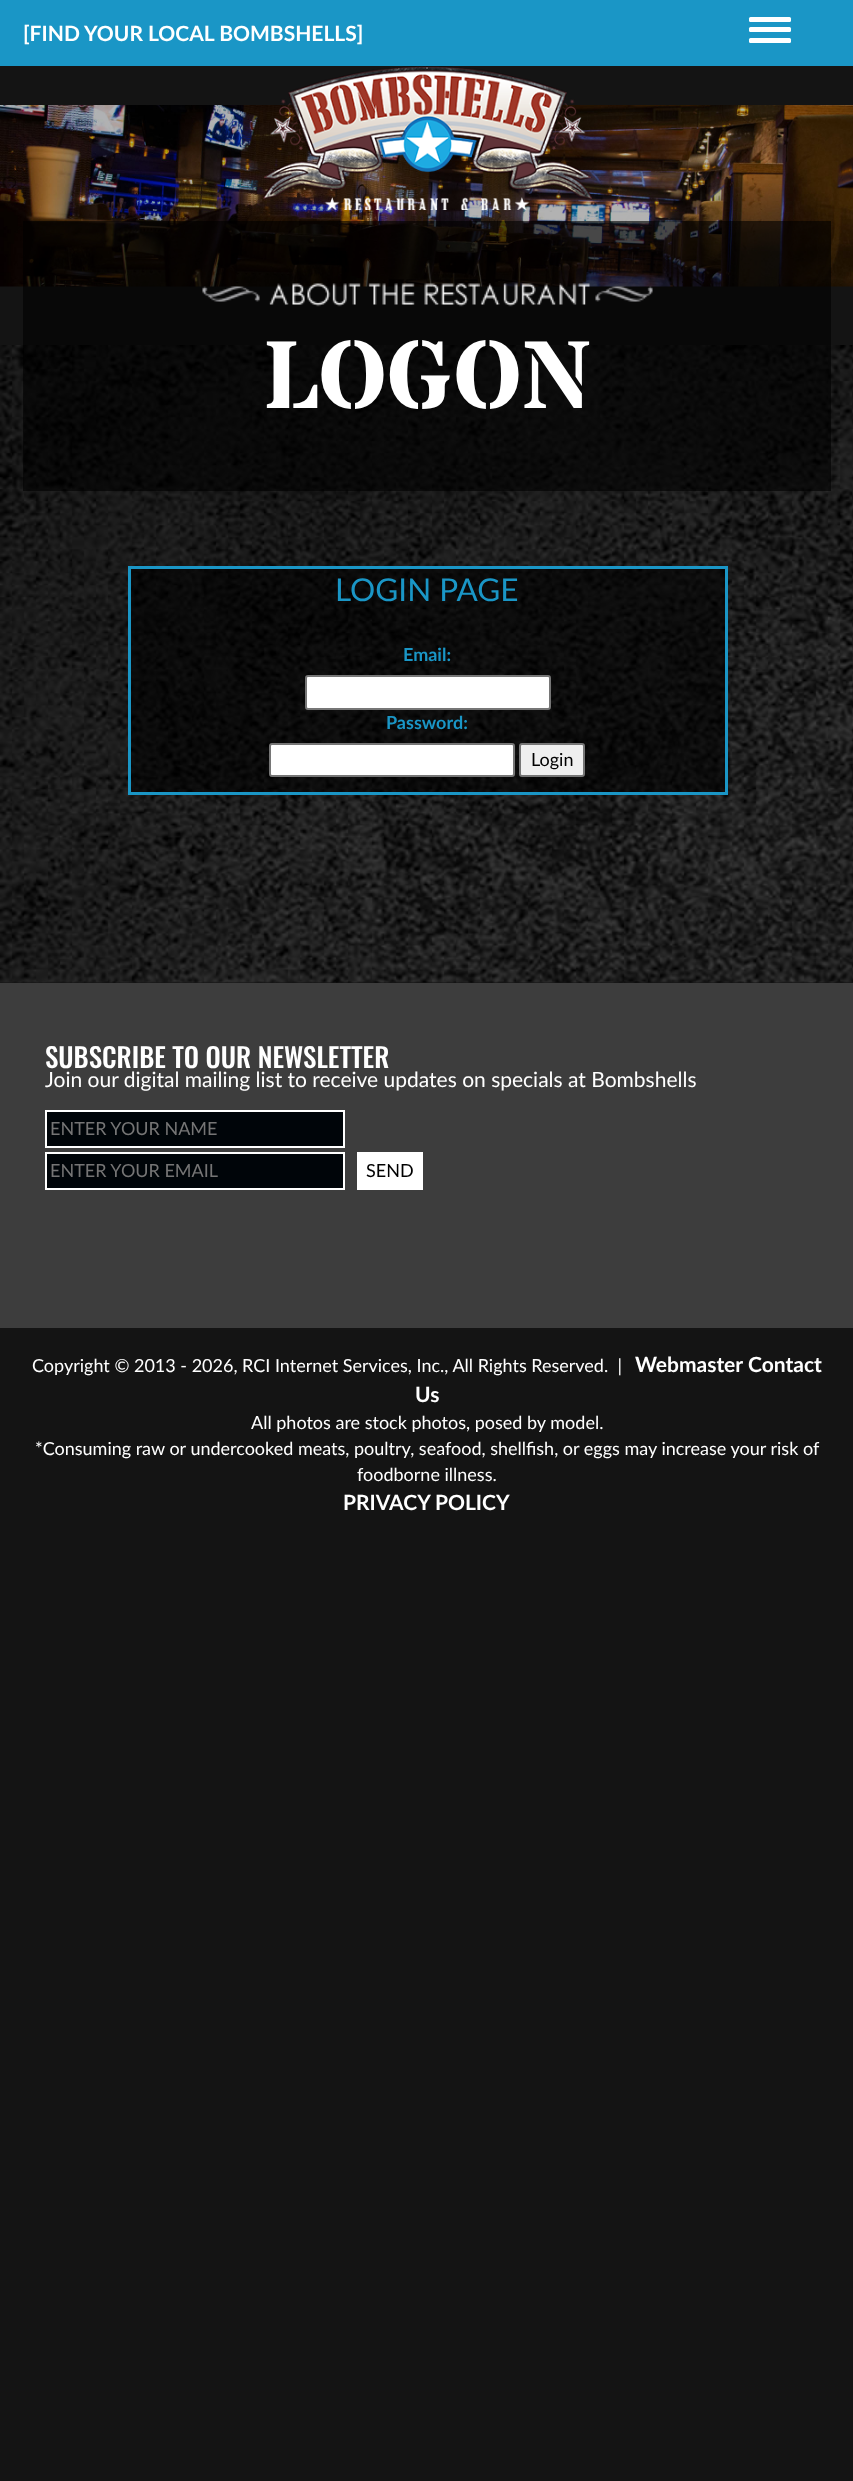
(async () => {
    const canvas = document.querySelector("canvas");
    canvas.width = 853;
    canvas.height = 2481;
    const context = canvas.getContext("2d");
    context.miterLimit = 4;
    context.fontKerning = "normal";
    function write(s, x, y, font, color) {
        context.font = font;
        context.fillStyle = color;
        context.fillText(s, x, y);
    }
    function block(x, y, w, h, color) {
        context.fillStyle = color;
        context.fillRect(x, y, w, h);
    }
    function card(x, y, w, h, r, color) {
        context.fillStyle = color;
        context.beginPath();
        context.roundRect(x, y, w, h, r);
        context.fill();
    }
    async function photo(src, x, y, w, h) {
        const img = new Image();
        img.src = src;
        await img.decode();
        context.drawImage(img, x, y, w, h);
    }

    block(0, 0, 853, 2481, "rgb(20, 20, 20)");
    block(0, 0, 853, 66, "rgb(26, 150, 198)");
    write("[FIND YOUR LOCAL BOMBSHELLS]", 23, 41, "bold 21px Lato", "rgb(255, 255, 255)");
    card(749, 17, 42, 5, 1.5, "rgb(255, 255, 255)");
    card(749, 27, 42, 5, 1.5, "rgb(255, 255, 255)");
    card(749, 38, 42, 5, 1.5, "rgb(255, 255, 255)");
    await photo("media/3.png", 0, 105, 853, 182);
    await photo("media/1.png", 263, 66, 329, 144);
    await photo("media/2.png", 0, 345, 853, 638);
    block(23, 221, 808, 270, "rgba(0, 0, 0, 0.6)");
    await photo("media/4.png", 202, 283, 451, 24);
    write("LOGON", 263, 408, "bold 96px Stardos Stencil", "rgb(255, 255, 255)");
    context.fillStyle = "rgba(0, 0, 0, 0.6)";
    context.beginPath();
    context.rect(129.5, 567.5, 597, 226);
    context.fill();
    context.strokeStyle = "rgb(26, 150, 198)";
    context.lineWidth = 3;
    context.stroke();
    write("LOGIN PAGE", 335, 601, "31.5px Lato", "rgb(26, 150, 198)");
    write("Email:", 403, 661, "bold 18px Lato", "rgb(26, 150, 198)");
    context.fillStyle = "rgb(255, 255, 255)";
    context.beginPath();
    context.roundRect(306, 676, 244, 33, 2);
    context.fill();
    context.strokeStyle = "rgb(118, 118, 118)";
    context.lineWidth = 2;
    context.stroke();
    write("Password:", 386, 729, "bold 18px Lato", "rgb(26, 150, 198)");
    context.fillStyle = "rgb(255, 255, 255)";
    context.beginPath();
    context.roundRect(270, 744, 244, 32, 2);
    context.fill();
    context.stroke();
    context.fillStyle = "rgb(239, 239, 239)";
    context.beginPath();
    context.roundRect(520, 744, 64, 32, 2);
    context.fill();
    context.stroke();
    write("Login", 531, 766, "18px Lato", "rgb(0, 0, 0)");
    block(0, 983, 853, 345, "rgb(61, 61, 61)");
    write("SUBSCRIBE TO OUR NEWSLETTER", 45, 1068, "500 27px Oswald", "rgb(255, 255, 255)");
    write("Join our digital mailing list to receive updates on specials at Bombshells", 45, 1087, "21px Lato", "rgb(255, 255, 255)");
    context.fillStyle = "rgb(0, 5, 9)";
    context.beginPath();
    context.rect(46, 1111, 298, 36);
    context.fill();
    context.strokeStyle = "rgb(255, 255, 255)";
    context.stroke();
    write("ENTER YOUR NAME", 50, 1135, "18px Lato", "rgb(117, 117, 117)");
    context.fillStyle = "rgb(0, 5, 9)";
    context.beginPath();
    context.rect(46, 1153, 298, 36);
    context.fill();
    context.stroke();
    write("ENTER YOUR EMAIL", 50, 1177, "18px Lato", "rgb(117, 117, 117)");
    block(357, 1152, 66, 38, "rgb(255, 255, 255)");
    write("SEND", 366, 1177, "18px Lato", "rgb(0, 0, 0)");
    write("Copyright © 2013 - 2026, RCI Internet Services, Inc., All Rights Reserved.  |", 32, 1372, "18px Lato", "rgb(255, 255, 255)");
    write("Webmaster", 635, 1372, "bold 21px Lato", "rgb(255, 255, 255)");
    write("Contact", 748, 1372, "bold 21px Lato", "rgb(255, 255, 255)");
    write("Us", 415, 1402, "bold 21px Lato", "rgb(255, 255, 255)");
    write("All photos are stock photos, posed by model.", 251, 1429, "18px Lato", "rgb(255, 255, 255)");
    write("*Consuming raw or undercooked meats, poultry, seafood, shellfish, or eggs may increase your risk of", 35, 1455, "18px Lato", "rgb(255, 255, 255)");
    write("foodborne illness.", 357, 1481, "18px Lato", "rgb(255, 255, 255)");
    write("PRIVACY POLICY", 343, 1510, "bold 21px Lato", "rgb(255, 255, 255)");
})();
